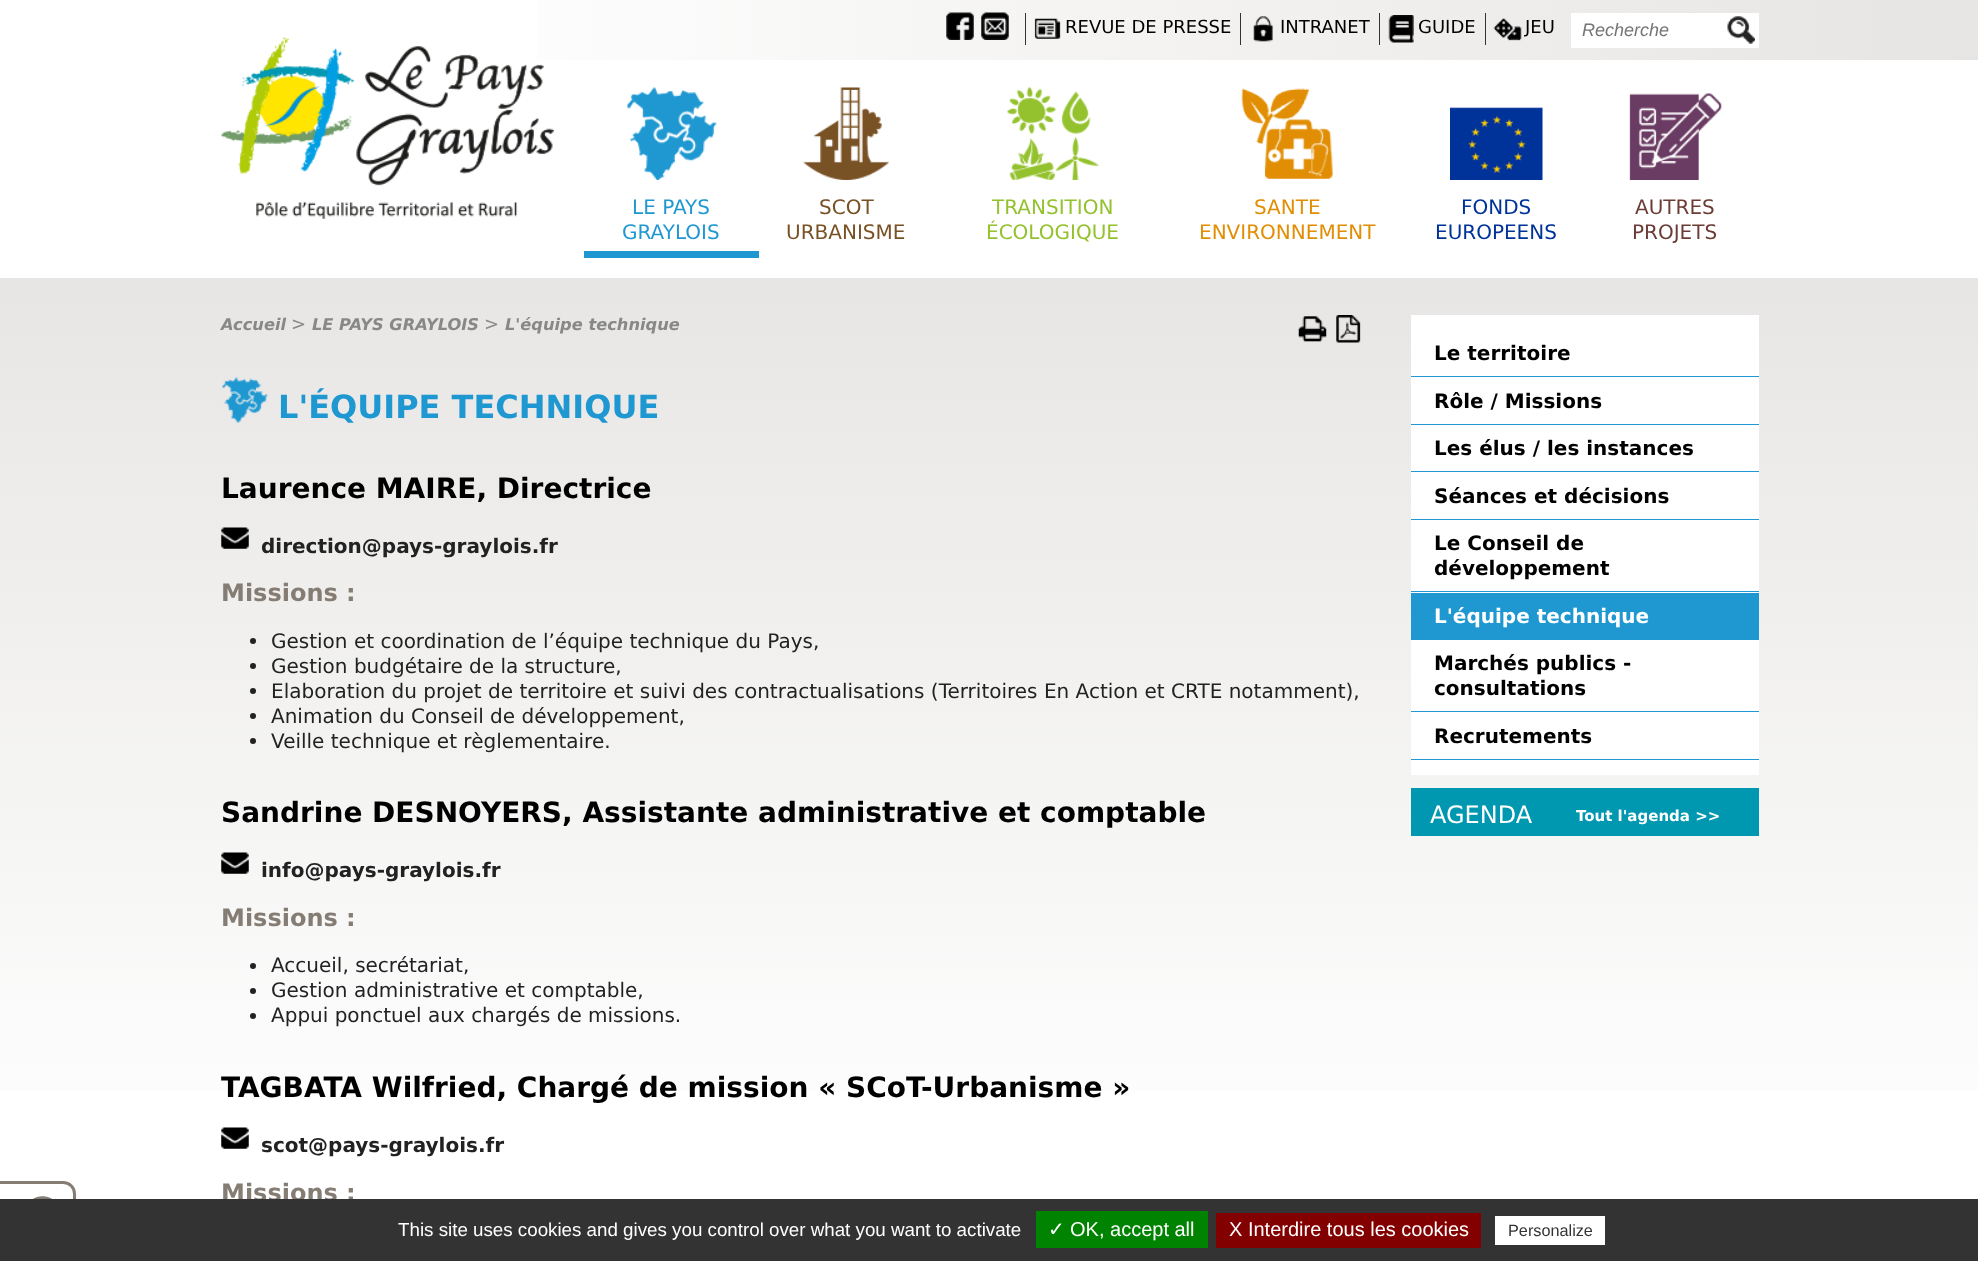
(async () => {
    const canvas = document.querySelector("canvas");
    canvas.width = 1978;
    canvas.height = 1261;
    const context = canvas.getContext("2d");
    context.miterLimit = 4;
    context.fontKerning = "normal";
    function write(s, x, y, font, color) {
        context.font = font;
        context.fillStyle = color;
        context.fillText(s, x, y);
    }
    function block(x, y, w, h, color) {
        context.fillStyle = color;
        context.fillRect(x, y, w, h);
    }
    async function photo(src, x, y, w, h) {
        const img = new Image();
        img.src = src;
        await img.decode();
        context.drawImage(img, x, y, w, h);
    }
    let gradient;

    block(0, 0, 1978, 1261, "rgb(255, 255, 255)");
    gradient = context.createLinearGradient(0, 30, 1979, 30);
    gradient.addColorStop(0, "rgb(255, 255, 255)");
    gradient.addColorStop(0.2, "rgb(255, 255, 255)");
    gradient.addColorStop(1, "rgb(231, 229, 227)");
    context.fillStyle = gradient;
    context.fillRect(537, 0, 1441, 60);
    await photo("media/1.png", 946, 12, 28, 28);
    await photo("media/2.png", 981, 12, 28, 28);
    block(1025, 13, 1, 32, "rgb(51, 51, 51)");
    await photo("media/3.png", 1034, 18, 27, 21);
    write("REVUE DE PRESSE", 1065, 33, "18px DejaVu Sans", "rgb(0, 0, 0)");
    block(1240, 13, 1, 32, "rgb(51, 51, 51)");
    await photo("media/4.png", 1253, 16, 20, 26);
    write("INTRANET", 1280, 33, "18px DejaVu Sans", "rgb(0, 0, 0)");
    block(1379, 13, 1, 32, "rgb(51, 51, 51)");
    await photo("media/5.png", 1388, 15, 26, 28);
    write("GUIDE", 1418, 33, "18px DejaVu Sans", "rgb(0, 0, 0)");
    block(1485, 13, 1, 32, "rgb(51, 51, 51)");
    await photo("media/6.png", 1493, 18, 29, 23);
    write("JEU", 1525, 33, "18px DejaVu Sans", "rgb(0, 0, 0)");
    block(1571, 13, 188, 35, "rgb(255, 255, 255)");
    write("Recherche", 1582, 36, "italic 18px Liberation Sans", "rgb(117, 117, 117)");
    await photo("media/7.png", 1727, 16, 28, 28);
    await photo("media/8.png", 221, 37, 333, 182);
    await photo("media/9.png", 627, 87, 90, 93);
    block(584, 251, 175, 7, "rgb(31, 152, 210)");
    write("LE PAYS", 632, 214, "20px DejaVu Sans", "rgb(31, 152, 210)");
    write("GRAYLOIS", 622, 239, "20px DejaVu Sans", "rgb(31, 152, 210)");
    await photo("media/10.png", 803, 87, 86, 93);
    write("SCOT", 819, 214, "20px DejaVu Sans", "rgb(120, 81, 36)");
    write("URBANISME", 786, 239, "20px DejaVu Sans", "rgb(120, 81, 36)");
    await photo("media/11.png", 1007, 87, 92, 93);
    write("TRANSITION", 992, 214, "20px DejaVu Sans", "rgb(148, 194, 47)");
    write("ÉCOLOGIQUE", 986, 239, "20px DejaVu Sans", "rgb(148, 194, 47)");
    await photo("media/12.png", 1241, 88, 92, 91);
    write("SANTE", 1254, 214, "20px DejaVu Sans", "rgb(225, 142, 4)");
    write("ENVIRONNEMENT", 1199, 239, "20px DejaVu Sans", "rgb(225, 142, 4)");
    await photo("media/13.png", 1450, 107, 93, 73);
    write("FONDS", 1461, 214, "20px DejaVu Sans", "rgb(0, 51, 153)");
    write("EUROPEENS", 1435, 239, "20px DejaVu Sans", "rgb(0, 51, 153)");
    await photo("media/14.png", 1629, 93, 93, 87);
    write("AUTRES", 1635, 214, "20px DejaVu Sans", "rgb(107, 60, 54)");
    write("PROJETS", 1632, 239, "20px DejaVu Sans", "rgb(107, 60, 54)");
    gradient = context.createLinearGradient(989, 277, 989, 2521);
    gradient.addColorStop(0, "rgb(231, 230, 228)");
    gradient.addColorStop(0.4, "rgb(255, 255, 255)");
    context.fillStyle = gradient;
    context.fillRect(0, 278, 1978, 813);
    write("Accueil", 221, 330, "italic bold 16.25px DejaVu Sans", "rgb(136, 136, 136)");
    write(">", 291, 330, "italic 18px DejaVu Sans", "rgb(136, 136, 136)");
    write("LE PAYS GRAYLOIS", 312, 330, "italic bold 16.25px DejaVu Sans", "rgb(136, 136, 136)");
    write(">", 484, 330, "italic 18px DejaVu Sans", "rgb(136, 136, 136)");
    write("L'équipe technique", 505, 330, "italic bold 16.25px DejaVu Sans", "rgb(136, 136, 136)");
    await photo("media/15.png", 1298, 316, 29, 26);
    await photo("media/16.png", 1336, 315, 25, 28);
    await photo("media/17.png", 222, 377, 46, 46);
    write("L'ÉQUIPE TECHNIQUE", 278, 418, "bold 32px DejaVu Sans", "rgb(31, 152, 210)");
    write("Laurence MAIRE, Directrice", 221, 498, "bold 28px DejaVu Sans", "rgb(0, 0, 0)");
    await photo("media/18.png", 221, 527, 28, 22);
    write("direction@pays-graylois.fr", 261, 553, "bold 20px DejaVu Sans", "rgb(34, 34, 34)");
    write("Missions :", 221, 601, "bold 24px DejaVu Sans", "rgb(133, 125, 115)");
    context.fillStyle = "rgb(34, 34, 34)";
    context.beginPath();
    context.arc(253, 641, 3, 0, Math.PI * 2);
    context.fill();
    write("Gestion et coordination de l’équipe technique du Pays,", 271, 648, "20px DejaVu Sans", "rgb(34, 34, 34)");
    context.beginPath();
    context.arc(253, 666, 3, 0, Math.PI * 2);
    context.fill();
    write("Gestion budgétaire de la structure,", 271, 673, "20px DejaVu Sans", "rgb(34, 34, 34)");
    context.beginPath();
    context.arc(253, 691, 3, 0, Math.PI * 2);
    context.fill();
    write("Elaboration du projet de territoire et suivi des contractualisations (Territoires En Action et CRTE notamment),", 271, 698, "20px DejaVu Sans", "rgb(34, 34, 34)");
    context.beginPath();
    context.arc(253, 716, 3, 0, Math.PI * 2);
    context.fill();
    write("Animation du Conseil de développement,", 271, 723, "20px DejaVu Sans", "rgb(34, 34, 34)");
    context.beginPath();
    context.arc(253, 741, 3, 0, Math.PI * 2);
    context.fill();
    write("Veille technique et règlementaire.", 271, 748, "20px DejaVu Sans", "rgb(34, 34, 34)");
    write("Sandrine DESNOYERS, Assistante administrative et comptable", 221, 822, "bold 28px DejaVu Sans", "rgb(0, 0, 0)");
    await photo("media/19.png", 221, 852, 28, 22);
    write("info@pays-graylois.fr", 261, 877, "bold 20px DejaVu Sans", "rgb(34, 34, 34)");
    write("Missions :", 221, 926, "bold 24px DejaVu Sans", "rgb(133, 125, 115)");
    context.fillStyle = "rgb(34, 34, 34)";
    context.beginPath();
    context.arc(253, 966, 3, 0, Math.PI * 2);
    context.fill();
    write("Accueil, secrétariat,", 271, 972, "20px DejaVu Sans", "rgb(34, 34, 34)");
    context.beginPath();
    context.arc(253, 991, 3, 0, Math.PI * 2);
    context.fill();
    write("Gestion administrative et comptable,", 271, 997, "20px DejaVu Sans", "rgb(34, 34, 34)");
    context.beginPath();
    context.arc(253, 1016, 3, 0, Math.PI * 2);
    context.fill();
    write("Appui ponctuel aux chargés de missions.", 271, 1022, "20px DejaVu Sans", "rgb(34, 34, 34)");
    write("TAGBATA Wilfried, Chargé de mission « SCoT-Urbanisme »", 221, 1097, "bold 28px DejaVu Sans", "rgb(0, 0, 0)");
    await photo("media/20.png", 221, 1127, 28, 22);
    write("scot@pays-graylois.fr", 261, 1152, "bold 20px DejaVu Sans", "rgb(34, 34, 34)");
    write("Missions :", 221, 1201, "bold 24px DejaVu Sans", "rgb(133, 125, 115)");
    block(1411, 315, 348, 460, "rgb(255, 255, 255)");
    block(1411, 376, 348, 1, "rgb(31, 152, 210)");
    write("Le territoire", 1434, 360, "bold 20px DejaVu Sans", "rgb(0, 0, 0)");
    block(1411, 424, 348, 1, "rgb(31, 152, 210)");
    write("Rôle / Missions", 1434, 408, "bold 20px DejaVu Sans", "rgb(0, 0, 0)");
    block(1411, 471, 348, 1, "rgb(31, 152, 210)");
    write("Les élus / les instances", 1434, 455, "bold 20px DejaVu Sans", "rgb(0, 0, 0)");
    block(1411, 519, 348, 1, "rgb(31, 152, 210)");
    write("Séances et décisions", 1434, 503, "bold 20px DejaVu Sans", "rgb(0, 0, 0)");
    block(1411, 591, 348, 1, "rgb(31, 152, 210)");
    write("Le Conseil de", 1434, 550, "bold 20px DejaVu Sans", "rgb(0, 0, 0)");
    write("développement", 1434, 575, "bold 20px DejaVu Sans", "rgb(0, 0, 0)");
    block(1411, 593, 348, 47, "rgb(31, 152, 210)");
    write("L'équipe technique", 1434, 623, "bold 20px DejaVu Sans", "rgb(255, 255, 255)");
    block(1411, 711, 348, 1, "rgb(31, 152, 210)");
    write("Marchés publics -", 1434, 670, "bold 20px DejaVu Sans", "rgb(0, 0, 0)");
    write("consultations", 1434, 695, "bold 20px DejaVu Sans", "rgb(0, 0, 0)");
    block(1411, 759, 348, 1, "rgb(31, 152, 210)");
    write("Recrutements", 1434, 743, "bold 20px DejaVu Sans", "rgb(0, 0, 0)");
    block(1411, 788, 348, 48, "rgb(0, 151, 177)");
    write("AGENDA", 1430, 823, "24px DejaVu Sans", "rgb(255, 255, 255)");
    write("Tout l'agenda >>", 1576, 821, "bold 15px DejaVu Sans", "rgb(255, 255, 255)");
    context.beginPath();
    context.moveTo(-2.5, 1182.5);
    context.lineTo(63, 1182.5);
    context.bezierCurveTo(69.5, 1182.5, 74.5, 1187.5, 74.5, 1194);
    context.lineTo(74.5, 1236);
    context.bezierCurveTo(74.5, 1242.5, 69.5, 1247.5, 63, 1247.5);
    context.lineTo(-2.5, 1247.5);
    context.closePath();
    context.strokeStyle = "rgb(133, 125, 115)";
    context.lineWidth = 3;
    context.stroke();
    await photo("media/21.png", 33, 1196, 19, 3);
    block(0, 1199, 1978, 62, "rgb(51, 51, 51)");
    write("This site uses cookies and gives you control over what you want to activate", 398, 1236, "18.75px Liberation Sans", "rgb(255, 255, 255)");
    block(1036, 1211, 172, 37, "rgb(0, 131, 0)");
    write("✓", 1048, 1236, "20px DejaVu Sans", "rgb(255, 255, 255)");
    write("OK, accept all", 1070, 1236, "20px Liberation Sans", "rgb(255, 255, 255)");
    block(1216, 1213, 265, 35, "rgb(131, 0, 0)");
    write("X Interdire tous les cookies", 1229, 1236, "20px Liberation Sans", "rgb(255, 255, 255)");
    block(1495, 1216, 110, 29, "rgb(255, 255, 255)");
    write("Personalize", 1508, 1236, "16.25px Liberation Sans", "rgb(51, 51, 51)");
})();
